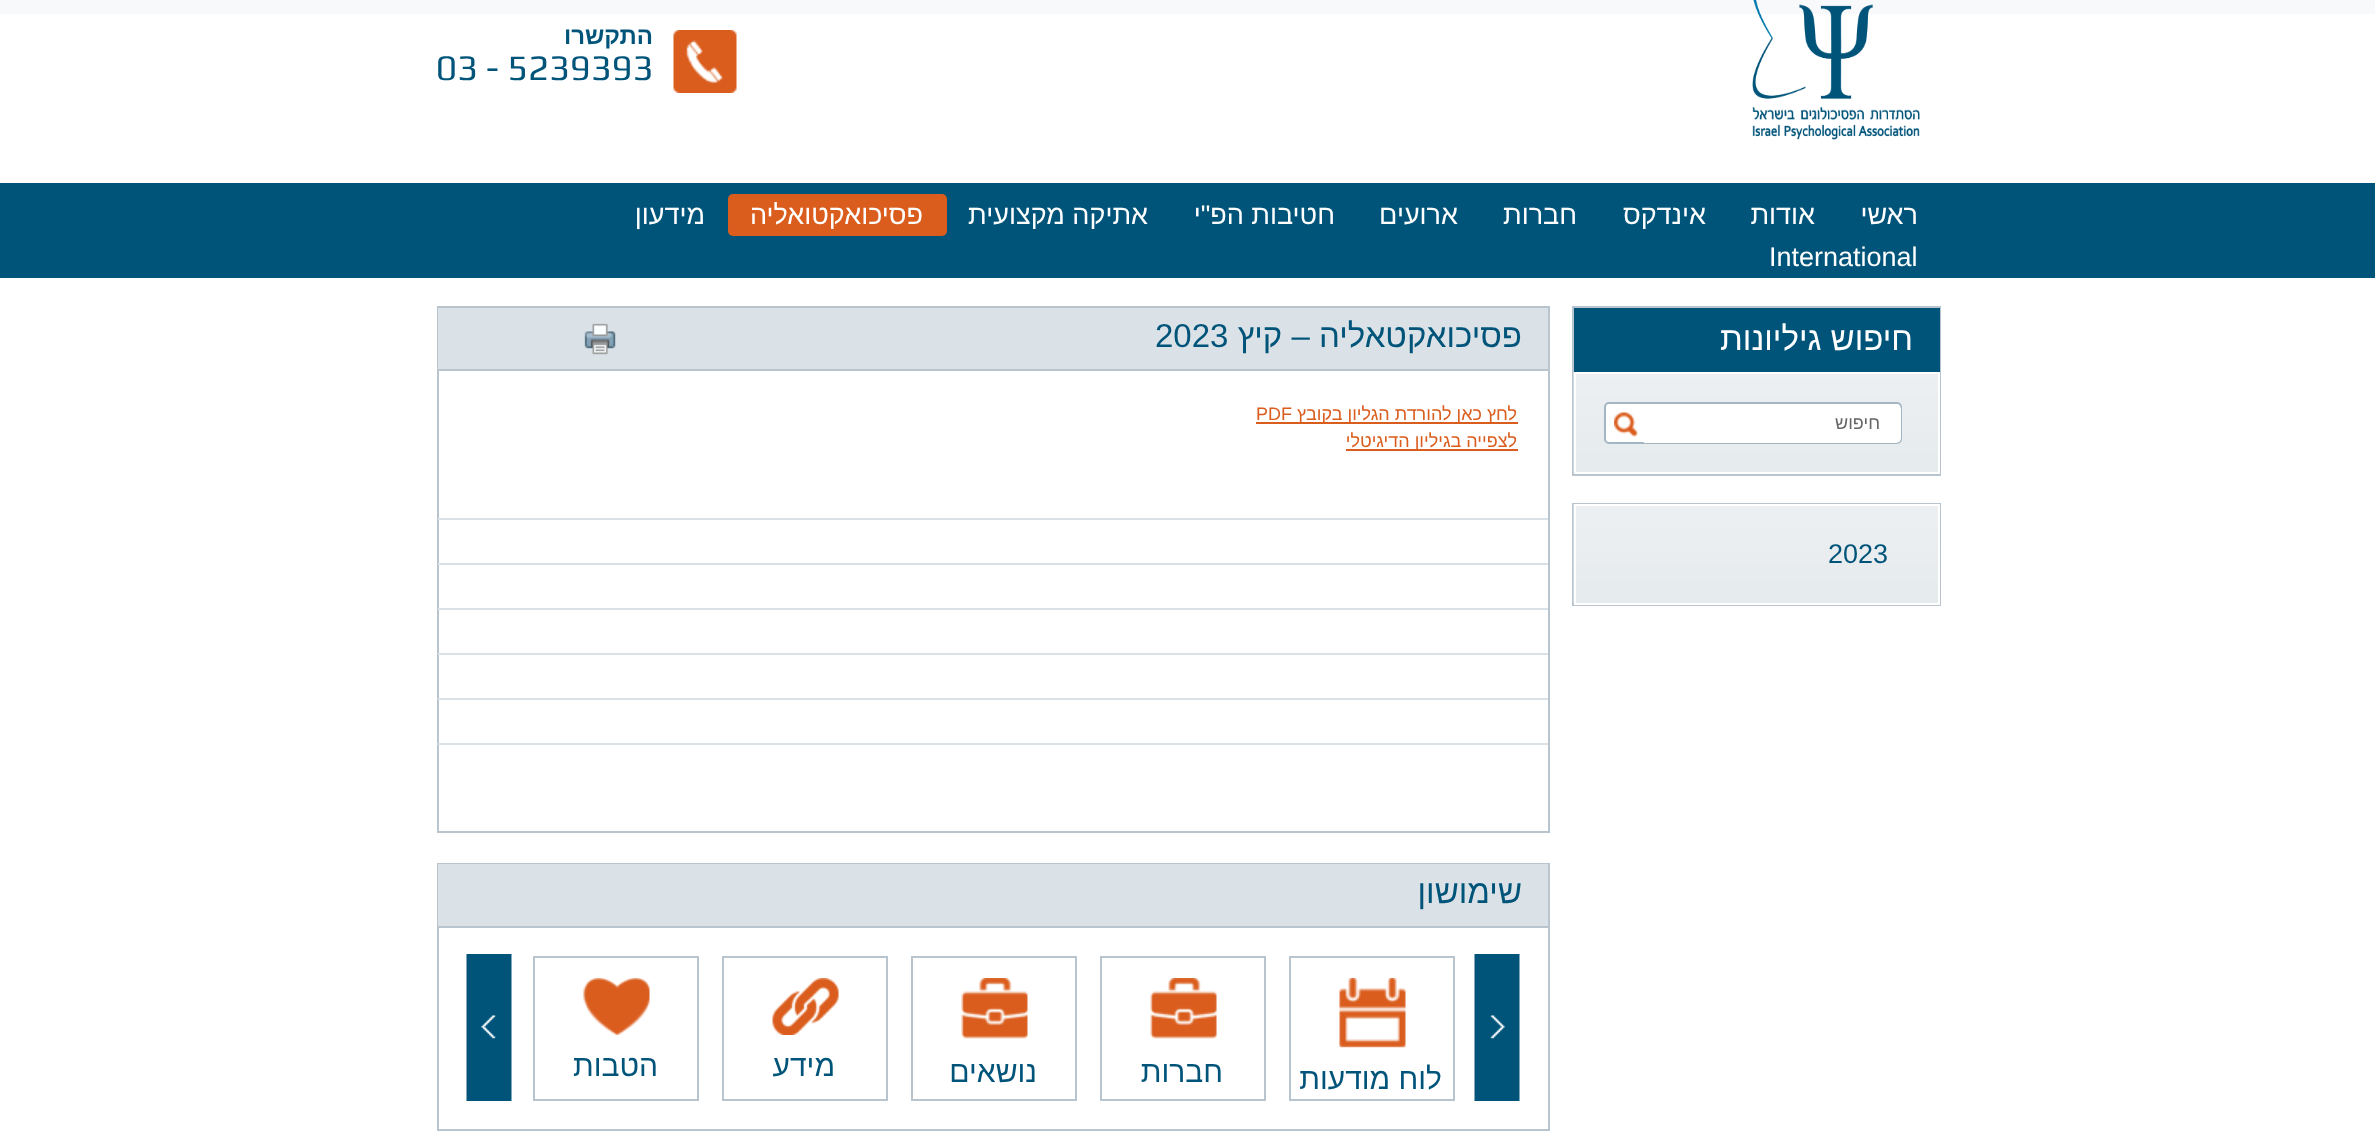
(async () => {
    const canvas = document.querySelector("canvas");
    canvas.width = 2375;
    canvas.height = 1144;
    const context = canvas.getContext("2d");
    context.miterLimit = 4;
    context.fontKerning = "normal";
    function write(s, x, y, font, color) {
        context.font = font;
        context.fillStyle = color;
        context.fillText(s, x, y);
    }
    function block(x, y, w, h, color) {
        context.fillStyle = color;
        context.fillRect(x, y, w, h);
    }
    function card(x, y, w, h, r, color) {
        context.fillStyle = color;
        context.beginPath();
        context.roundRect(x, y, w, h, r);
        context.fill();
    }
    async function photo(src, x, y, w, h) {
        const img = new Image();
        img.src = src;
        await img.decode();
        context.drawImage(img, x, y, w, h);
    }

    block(0, 0, 2375, 1144, "rgb(255, 255, 255)");
    block(0, 0, 2375, 14, "rgb(248, 249, 251)");
    await photo("media/1.png", 1752, 0, 168, 140);
    await photo("media/2.png", 673, 30, 64, 63);
    context.direction = "rtl";
    write("התקשרו", 653, 44, "bold 24px Liberation Sans", "rgb(0, 84, 122)");
    context.direction = "ltr";
    write("03 - 5239393", 436, 80, "36px Play", "rgb(0, 84, 122)");
    block(0, 183, 2375, 95, "rgb(0, 84, 122)");
    context.direction = "rtl";
    write("ראשי", 1918, 224, "27px Liberation Sans", "rgb(255, 255, 255)");
    write("אודות", 1815, 224, "27px Liberation Sans", "rgb(255, 255, 255)");
    write("אינדקס", 1706, 224, "27px Liberation Sans", "rgb(255, 255, 255)");
    write("חברות", 1577, 224, "27px Liberation Sans", "rgb(255, 255, 255)");
    write("ארועים", 1458, 224, "27px Liberation Sans", "rgb(255, 255, 255)");
    write("חטיבות הפ\"י", 1335, 224, "27px Liberation Sans", "rgb(255, 255, 255)");
    write("אתיקה מקצועית", 1148, 224, "27px Liberation Sans", "rgb(255, 255, 255)");
    card(728, 194, 219, 42, 5, "rgb(218, 93, 29)");
    write("פסיכואקטואליה", 923, 224, "27px Liberation Sans", "rgb(255, 255, 255)");
    write("מידעון", 705, 224, "27px Liberation Sans", "rgb(255, 255, 255)");
    context.direction = "ltr";
    write("International", 1769, 266, "27px Liberation Sans", "rgb(255, 255, 255)");
    context.strokeStyle = "rgb(184, 197, 207)";
    context.lineWidth = 2;
    context.strokeRect(1573, 307, 367, 168);
    block(1574, 308, 366, 64, "rgb(0, 84, 122)");
    context.direction = "rtl";
    write("חיפוש גיליונות", 1913, 350, "33px Liberation Sans", "rgb(255, 255, 255)");
    await photo("media/3.png", 1573, 372, 365, 101);
    context.strokeStyle = "rgb(255, 255, 255)";
    context.strokeRect(1575, 373, 364, 100);
    context.beginPath();
    context.roundRect(1605, 403, 296, 40, 4);
    context.fill();
    context.strokeStyle = "rgb(165, 182, 195)";
    context.stroke();
    context.beginPath();
    context.roundRect(1644, 404, 257, 39, [0, 5, 5, 0]);
    context.fill();
    write("חיפוש", 1880, 429, "18px Liberation Sans", "rgb(101, 101, 101)");
    await photo("media/4.png", 1614, 412, 24, 25);
    context.strokeStyle = "rgb(184, 197, 207)";
    context.strokeRect(1573, 504, 367, 101);
    await photo("media/5.png", 1573, 504, 365, 99);
    context.strokeStyle = "rgb(255, 255, 255)";
    context.strokeRect(1575, 505, 364, 99);
    context.direction = "ltr";
    write("2023", 1828, 563, "27px Liberation Sans", "rgb(0, 84, 122)");
    context.strokeStyle = "rgb(184, 197, 207)";
    context.strokeRect(438, 307, 1111, 525);
    block(438, 308, 1110, 61, "rgb(219, 226, 231)");
    block(438, 369, 1110, 2, "rgb(184, 197, 207)");
    context.direction = "rtl";
    write("פסיכואקטאליה – קיץ", 1522, 347, "33px Liberation Sans", "rgb(0, 84, 122)");
    context.direction = "ltr";
    write("2023", 1155, 347, "33px Liberation Sans", "rgb(0, 84, 122)");
    await photo("media/6.png", 584, 323, 32, 32);
    block(1256, 422, 262, 2, "rgb(218, 93, 29)");
    context.direction = "rtl";
    write("לחץ כאן להורדת הגליון בקובץ", 1517, 420, "18px Liberation Sans", "rgb(218, 93, 29)");
    context.direction = "ltr";
    write("PDF", 1256, 420, "18px Liberation Sans", "rgb(218, 93, 29)");
    block(1346, 449, 172, 2, "rgb(218, 93, 29)");
    context.direction = "rtl";
    write("לצפייה בגיליון הדיגיטלי", 1517, 447, "18px Liberation Sans", "rgb(218, 93, 29)");
    block(438, 518, 1110, 2, "rgb(219, 226, 231)");
    block(438, 563, 1110, 2, "rgb(219, 226, 231)");
    block(438, 608, 1110, 2, "rgb(219, 226, 231)");
    block(438, 653, 1110, 2, "rgb(219, 226, 231)");
    block(438, 698, 1110, 2, "rgb(219, 226, 231)");
    block(438, 743, 1110, 2, "rgb(219, 226, 231)");
    context.strokeRect(438, 864, 1111, 266);
    block(438, 864, 1110, 62, "rgb(219, 226, 231)");
    block(438, 926, 1110, 2, "rgb(184, 197, 207)");
    write("שימושון", 1522, 903, "33px Liberation Sans", "rgb(0, 84, 122)");
    await photo("media/7.png", 1474, 954, 46, 147);
    context.strokeRect(1290, 957, 164, 143);
    await photo("media/8.png", 1339, 978, 67, 70);
    write("לוח מודעות", 1442, 1089, "30px Liberation Sans", "rgb(0, 84, 122)");
    context.strokeRect(1101, 957, 164, 143);
    await photo("media/9.png", 1150, 978, 67, 61);
    write("חברות", 1223, 1082, "30px Liberation Sans", "rgb(0, 84, 122)");
    context.strokeRect(912, 957, 164, 143);
    await photo("media/10.png", 961, 978, 67, 61);
    write("נושאים", 1037, 1082, "30px Liberation Sans", "rgb(0, 84, 122)");
    context.strokeRect(723, 957, 164, 143);
    await photo("media/11.png", 772, 978, 67, 57);
    write("מידע", 835, 1076, "30px Liberation Sans", "rgb(0, 84, 122)");
    context.strokeRect(534, 957, 164, 143);
    await photo("media/12.png", 583, 978, 67, 57);
    write("הטבות", 658, 1076, "30px Liberation Sans", "rgb(0, 84, 122)");
    await photo("media/13.png", 466, 954, 46, 147);
})();
